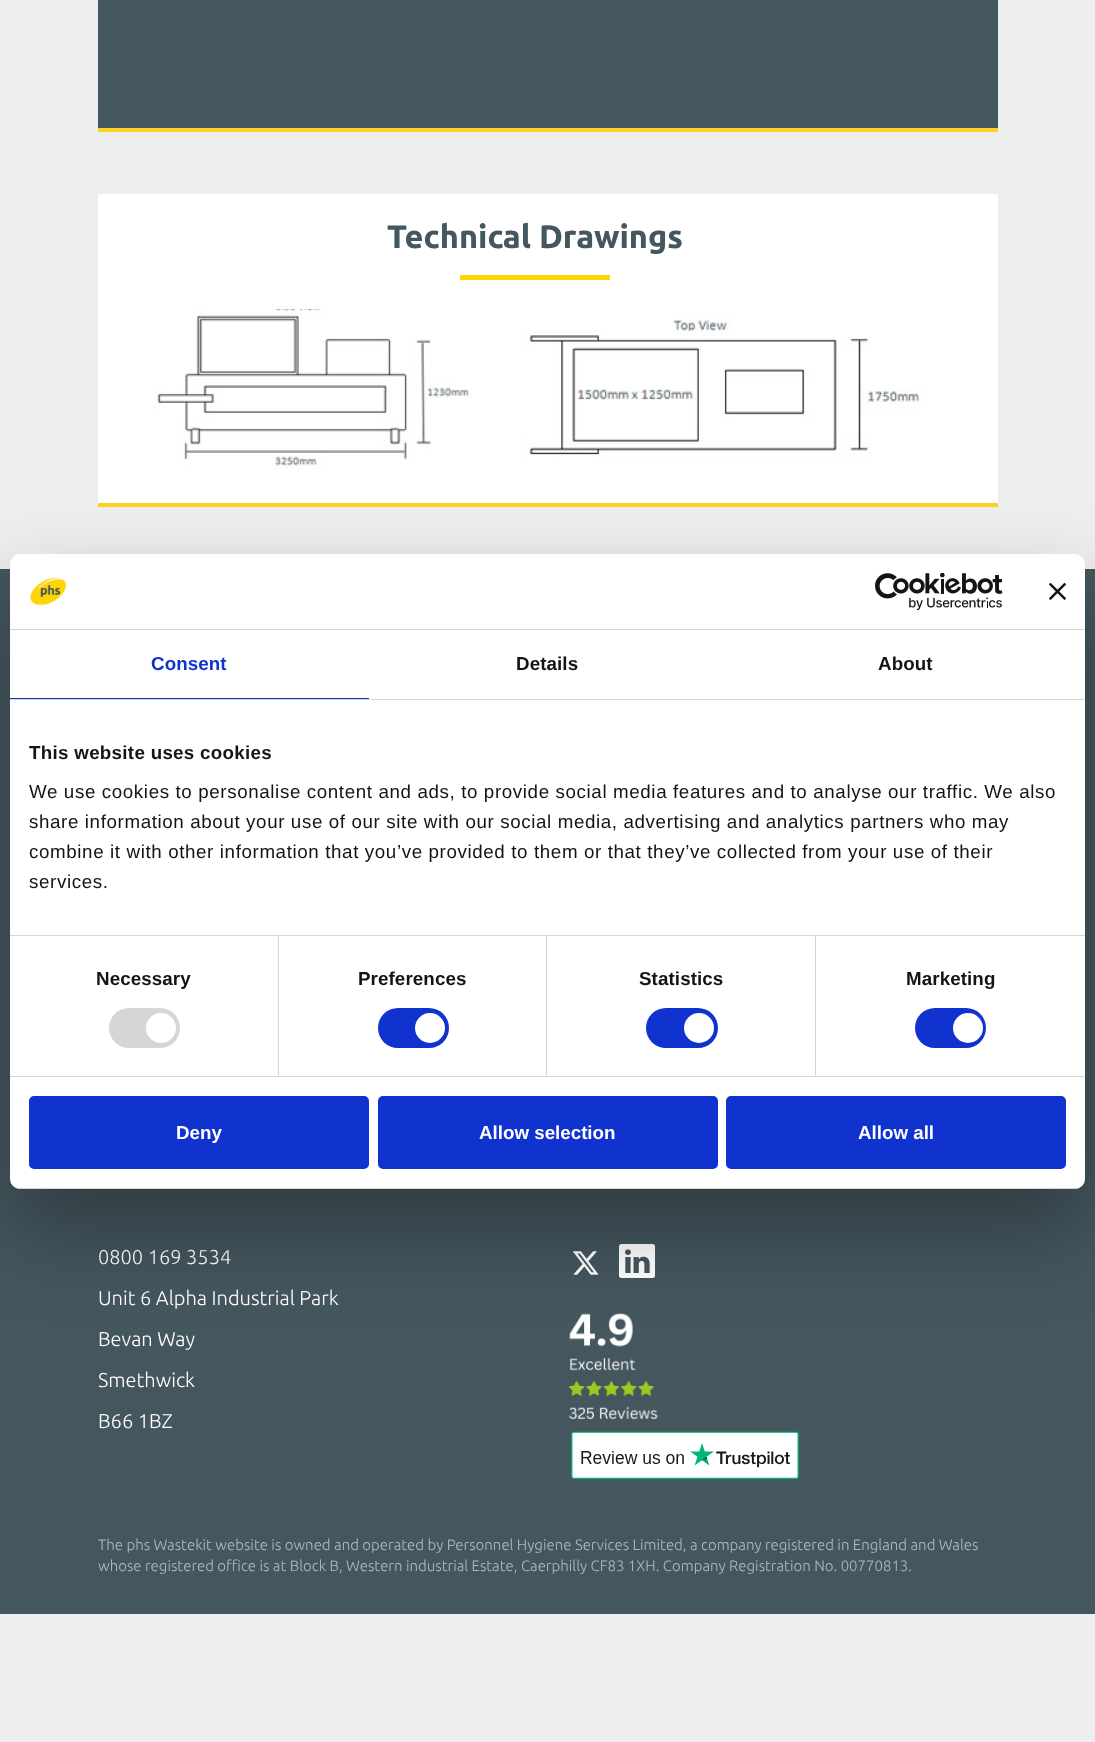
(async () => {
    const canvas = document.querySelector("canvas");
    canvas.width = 1095;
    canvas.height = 1742;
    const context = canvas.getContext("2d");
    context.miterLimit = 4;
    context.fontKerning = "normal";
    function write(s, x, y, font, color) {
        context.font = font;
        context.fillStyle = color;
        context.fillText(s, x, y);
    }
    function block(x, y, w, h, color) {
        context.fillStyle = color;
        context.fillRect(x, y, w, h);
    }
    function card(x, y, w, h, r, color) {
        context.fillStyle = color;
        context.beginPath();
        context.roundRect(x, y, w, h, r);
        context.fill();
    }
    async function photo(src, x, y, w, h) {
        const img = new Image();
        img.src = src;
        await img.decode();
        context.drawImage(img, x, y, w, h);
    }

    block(0, 0, 1095, 1742, "rgb(238, 238, 238)");
    block(98, 0, 900, 128, "rgb(68, 86, 94)");
    block(98, 128, 900, 4, "rgb(254, 211, 38)");
    block(98, 194, 900, 309, "rgb(255, 255, 255)");
    block(98, 503, 900, 4, "rgb(254, 211, 38)");
    write("Technical Drawings", 387, 248, "bold 32.5px Ubuntu", "rgb(68, 86, 94)");
    block(460, 275, 150, 5, "rgb(255, 212, 1)");
    await photo("media/1.png", 154, 309, 769, 160);
    block(0, 569, 1095, 1045, "rgb(68, 86, 94)");
    write("0800 169 3534", 98, 1264, "300 20px Ubuntu", "rgb(255, 255, 255)");
    write("Unit 6 Alpha Industrial Park", 98, 1305, "300 20px Ubuntu", "rgb(255, 255, 255)");
    write("Bevan Way", 98, 1346, "300 20px Ubuntu", "rgb(255, 255, 255)");
    write("Smethwick", 98, 1387, "300 20px Ubuntu", "rgb(255, 255, 255)");
    write("B66 1BZ", 98, 1428, "300 20px Ubuntu", "rgb(255, 255, 255)");
    await photo("media/2.png", 572, 1251, 27, 24);
    card(619, 1244, 36, 34, 2.5, "rgb(255, 255, 255)");
    await photo("media/3.png", 625, 1249, 25, 24);
    await photo("media/4.png", 568, 1313, 90, 107);
    await photo("media/5.png", 571, 1431, 228, 48);
    write("The phs Wastekit website is owned and operated by Personnel Hygiene Services Limited, a company registered in England and Wales", 98, 1550, "300 15px Ubuntu", "rgb(168, 188, 197)");
    write("whose registered office is at Block B, Western industrial Estate, Caerphilly CF83 1XH. Company Registration No. 00770813.", 98, 1571, "300 15px Ubuntu", "rgb(168, 188, 197)");
    context.fillStyle = "rgba(0, 0, 0, 0.3)";
    context.filter = "blur(42.5px)";
    context.beginPath();
    context.roundRect(10, 594, 1075, 635, 10);
    context.fill();
    context.filter = "none";
    card(10, 554, 1075, 635, 10, "rgb(255, 255, 255)");
    block(10, 629, 1075, 1, "rgb(214, 214, 214)");
    await photo("media/6.png", 30, 577, 37, 29);
    await photo("media/7.png", 875, 573, 128, 37);
    await photo("media/8.png", 1049, 583, 17, 17);
    block(10, 699, 1075, 1, "rgb(214, 214, 214)");
    block(10, 698, 359, 1, "rgb(16, 50, 207)");
    context.letterSpacing = "0.1px";
    write("Consent", 151, 670, "bold 18.75px Liberation Sans", "rgb(16, 50, 207)");
    write("Details", 516, 670, "bold 18.75px Liberation Sans", "rgb(20, 20, 20)");
    write("About", 878, 670, "bold 18.75px Liberation Sans", "rgb(20, 20, 20)");
    block(10, 935, 1075, 1, "rgb(214, 214, 214)");
    context.letterSpacing = "0.3px";
    write("This website uses cookies", 29, 759, "bold 18.75px Liberation Sans", "rgb(20, 20, 20)");
    context.letterSpacing = "0.62px";
    write("We use cookies to personalise content and ads, to provide social media features and to analyse our traffic. We also", 29, 798, "18.75px Liberation Sans", "rgb(20, 20, 20)");
    write("share information about your use of our site with our social media, advertising and analytics partners who may", 29, 828, "18.75px Liberation Sans", "rgb(20, 20, 20)");
    write("combine it with other information that you’ve provided to them or that they’ve collected from your use of their", 29, 858, "18.75px Liberation Sans", "rgb(20, 20, 20)");
    write("services.", 29, 888, "18.75px Liberation Sans", "rgb(20, 20, 20)");
    block(10, 1076, 1075, 1, "rgb(214, 214, 214)");
    block(278, 936, 1, 140, "rgb(214, 214, 214)");
    context.letterSpacing = "0.1px";
    write("Necessary", 96, 985, "bold 18.75px Liberation Sans", "rgb(20, 20, 20)");
    card(109, 1008, 71, 40, 20, "rgb(214, 214, 214)");
    context.fillStyle = "rgb(255, 255, 255)";
    context.beginPath();
    context.arc(161, 1028, 15, 0, Math.PI * 2);
    context.fill();
    block(546, 936, 1, 140, "rgb(214, 214, 214)");
    write("Preferences", 358, 985, "bold 18.75px Liberation Sans", "rgb(20, 20, 20)");
    card(378, 1008, 71, 40, 20, "rgb(16, 50, 207)");
    context.fillStyle = "rgb(255, 255, 255)";
    context.beginPath();
    context.arc(430, 1028, 15, 0, Math.PI * 2);
    context.fill();
    block(815, 936, 1, 140, "rgb(214, 214, 214)");
    write("Statistics", 639, 985, "bold 18.75px Liberation Sans", "rgb(20, 20, 20)");
    card(646, 1008, 72, 40, 20, "rgb(16, 50, 207)");
    context.fillStyle = "rgb(255, 255, 255)";
    context.beginPath();
    context.arc(699, 1028, 15, 0, Math.PI * 2);
    context.fill();
    write("Marketing", 906, 985, "bold 18.75px Liberation Sans", "rgb(20, 20, 20)");
    card(915, 1008, 71, 40, 20, "rgb(16, 50, 207)");
    context.fillStyle = "rgb(255, 255, 255)";
    context.beginPath();
    context.arc(968, 1028, 15, 0, Math.PI * 2);
    context.fill();
    context.save();
    context.beginPath();
    context.roundRect(10, 554, 1075, 635, 10);
    context.clip();
    block(10, 1188, 1075, 1, "rgb(214, 214, 214)");
    context.restore();
    context.fillStyle = "rgb(16, 50, 207)";
    context.beginPath();
    context.roundRect(30.5, 1097.5, 337, 70, 3.5);
    context.fill();
    context.strokeStyle = "rgb(16, 50, 207)";
    context.lineWidth = 3;
    context.stroke();
    context.letterSpacing = "0px";
    write("Deny", 176, 1139, "bold 18.75px Liberation Sans", "rgb(255, 255, 255)");
    context.fillStyle = "rgb(16, 50, 207)";
    context.beginPath();
    context.roundRect(379.5, 1097.5, 337, 70, 3.5);
    context.fill();
    context.stroke();
    write("Allow selection", 479, 1139, "bold 18.75px Liberation Sans", "rgb(255, 255, 255)");
    context.fillStyle = "rgb(16, 50, 207)";
    context.beginPath();
    context.roundRect(727.5, 1097.5, 337, 70, 3.5);
    context.fill();
    context.stroke();
    write("Allow all", 858, 1139, "bold 18.75px Liberation Sans", "rgb(255, 255, 255)");
})();
